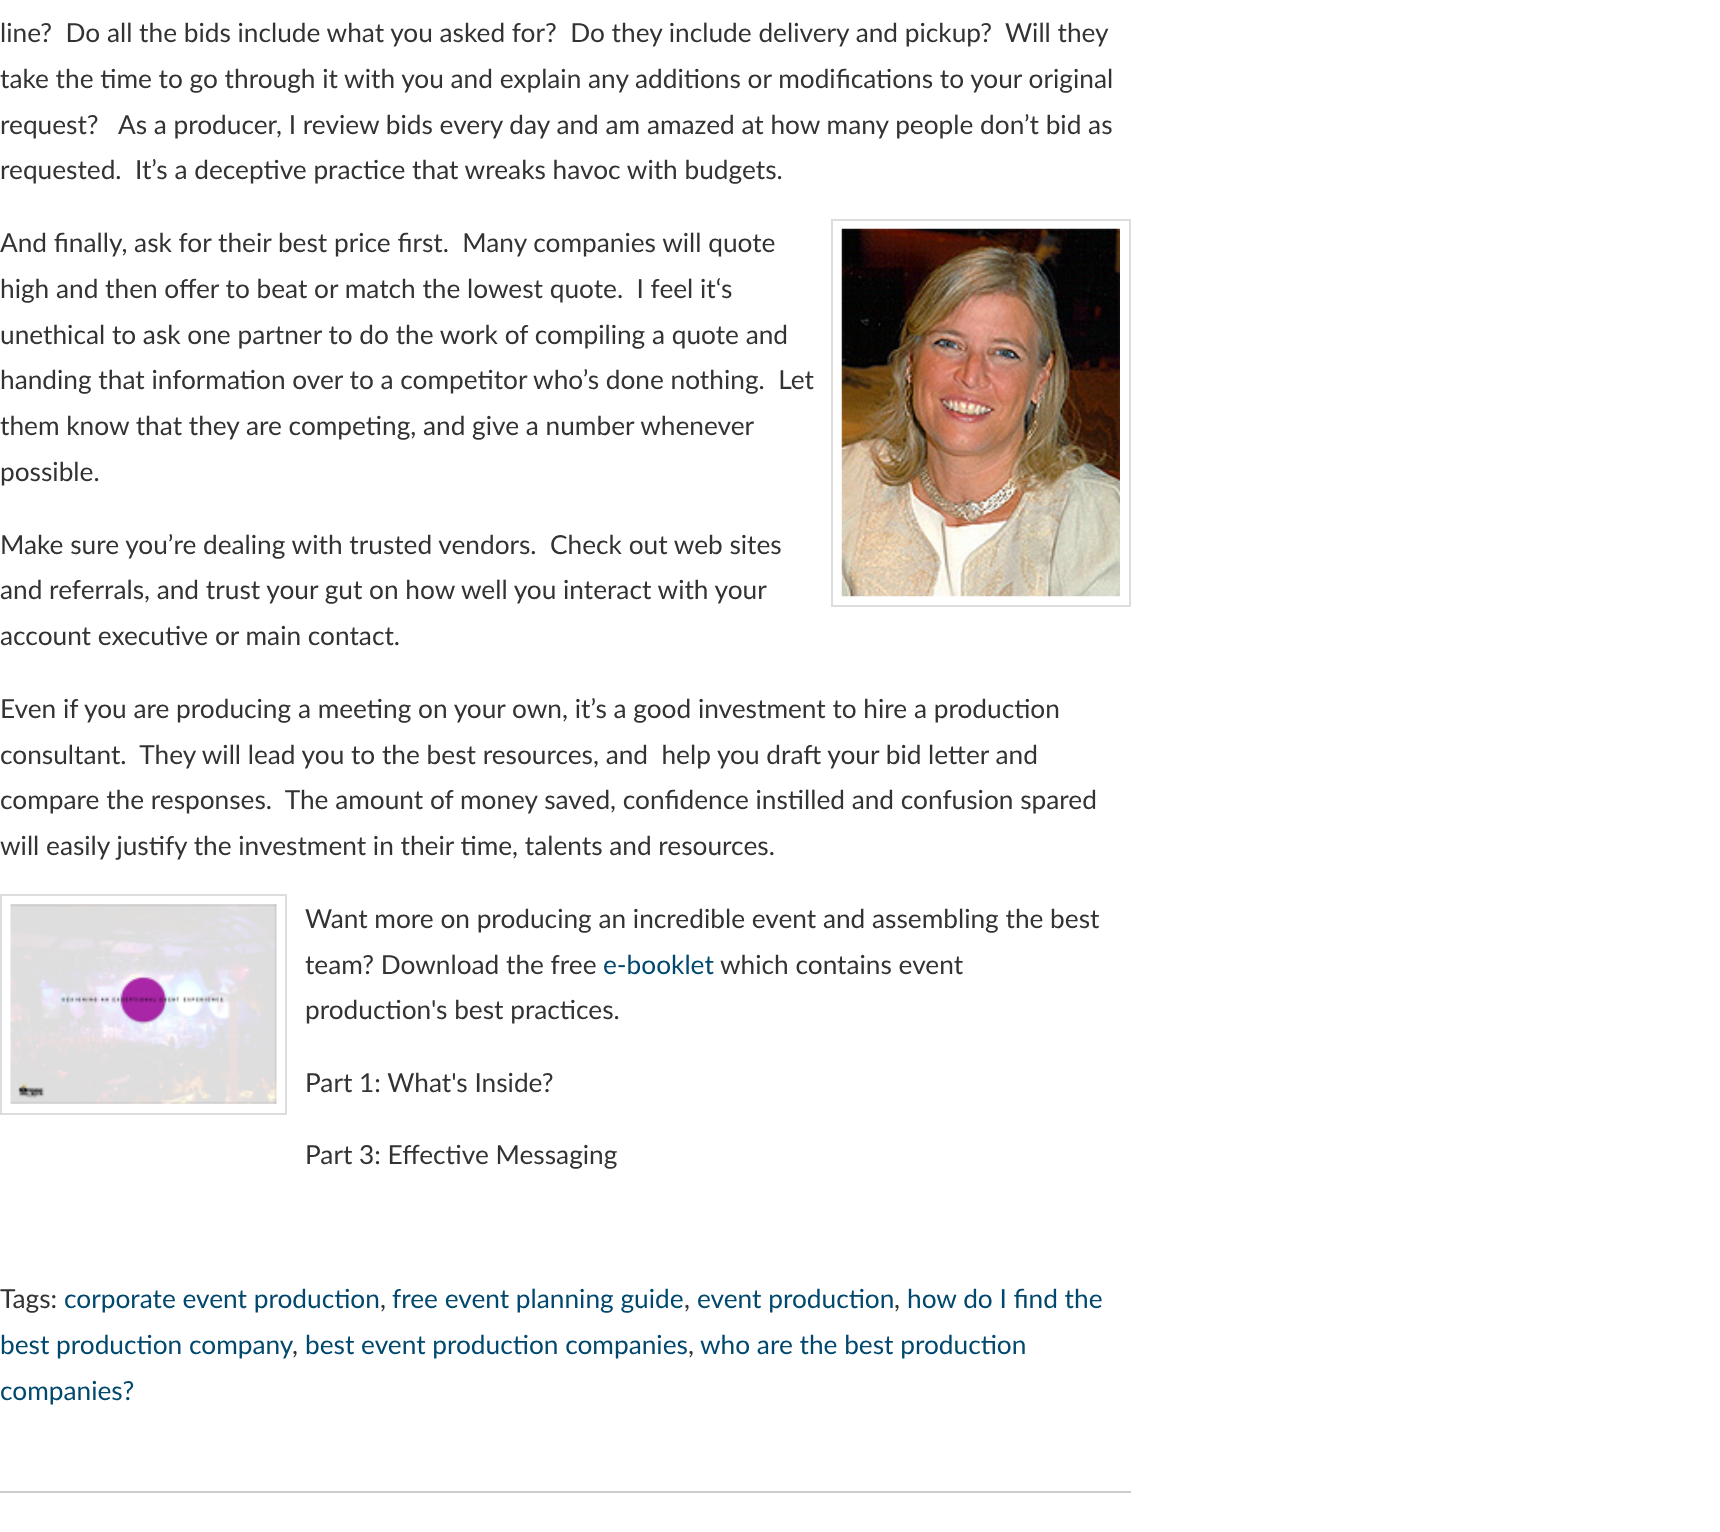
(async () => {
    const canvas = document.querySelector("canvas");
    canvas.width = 1720;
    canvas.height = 1532;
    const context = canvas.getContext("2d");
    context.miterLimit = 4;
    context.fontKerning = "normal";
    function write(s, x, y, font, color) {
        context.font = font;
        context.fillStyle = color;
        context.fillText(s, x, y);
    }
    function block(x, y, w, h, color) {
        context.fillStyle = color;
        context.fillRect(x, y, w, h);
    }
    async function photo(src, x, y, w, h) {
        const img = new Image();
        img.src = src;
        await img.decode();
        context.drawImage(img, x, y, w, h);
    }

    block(0, 0, 1720, 1532, "rgb(255, 255, 255)");
    write("line?  Do all the bids include what you asked for?  Do they include delivery and pickup?  Will they", 0, 42, "26.25px Lato", "rgb(51, 51, 51)");
    write("take the time to go through it with you and explain any additions or modifications to your original", 0, 88, "26.25px Lato", "rgb(51, 51, 51)");
    write("request?   As a producer, I review bids every day and am amazed at how many people don’t bid as", 0, 134, "26.25px Lato", "rgb(51, 51, 51)");
    write("requested.  It’s a deceptive practice that wreaks havoc with budgets.", 0, 179, "26.25px Lato", "rgb(51, 51, 51)");
    write("And finally, ask for their best price first.  Many companies will quote", 0, 252, "26.25px Lato", "rgb(51, 51, 51)");
    context.strokeStyle = "rgb(221, 221, 221)";
    context.lineWidth = 2;
    context.strokeRect(832, 220, 298, 386);
    await photo("media/1.png", 841, 228, 279, 369);
    write("high and then offer to beat or match the lowest quote.  I feel it‘s", 0, 298, "26.25px Lato", "rgb(51, 51, 51)");
    write("unethical to ask one partner to do the work of compiling a quote and", 0, 344, "26.25px Lato", "rgb(51, 51, 51)");
    write("handing that information over to a competitor who’s done nothing.  Let", 0, 389, "26.25px Lato", "rgb(51, 51, 51)");
    write("them know that they are competing, and give a number whenever", 0, 435, "26.25px Lato", "rgb(51, 51, 51)");
    write("possible.", 0, 481, "26.25px Lato", "rgb(51, 51, 51)");
    write("Make sure you’re dealing with trusted vendors.  Check out web sites", 0, 554, "26.25px Lato", "rgb(51, 51, 51)");
    write("and referrals, and trust your gut on how well you interact with your", 0, 599, "26.25px Lato", "rgb(51, 51, 51)");
    write("account executive or main contact.", 0, 645, "26.25px Lato", "rgb(51, 51, 51)");
    write("Even if you are producing a meeting on your own, it’s a good investment to hire a production", 0, 718, "26.25px Lato", "rgb(51, 51, 51)");
    write("consultant.  They will lead you to the best resources, and  help you draft your bid letter and", 0, 764, "26.25px Lato", "rgb(51, 51, 51)");
    write("compare the responses.  The amount of money saved, confidence instilled and confusion spared", 0, 809, "26.25px Lato", "rgb(51, 51, 51)");
    write("will easily justify the investment in their time, talents and resources.", 0, 855, "26.25px Lato", "rgb(51, 51, 51)");
    context.strokeRect(1, 895, 285, 219);
    await photo("media/2.png", 10, 904, 267, 200);
    write("Want more on producing an incredible event and assembling the best", 305, 928, "26.25px Lato", "rgb(51, 51, 51)");
    write("team? Download the free", 305, 974, "26.25px Lato", "rgb(51, 51, 51)");
    write("e-booklet", 603, 974, "26.25px Lato", "rgb(0, 72, 109)");
    write("which contains event", 720, 974, "26.25px Lato", "rgb(51, 51, 51)");
    write("production's best practices.", 305, 1019, "26.25px Lato", "rgb(51, 51, 51)");
    write("Part 1: What's Inside?", 305, 1092, "26.25px Lato", "rgb(51, 51, 51)");
    write("Part 3: Effective Messaging", 305, 1164, "26.25px Lato", "rgb(51, 51, 51)");
    write("Tags:", 0, 1308, "26.25px Lato", "rgb(51, 51, 51)");
    write("corporate event production", 64, 1308, "26.25px Lato", "rgb(0, 72, 109)");
    write(",", 380, 1308, "26.25px Lato", "rgb(51, 51, 51)");
    write("free event planning guide", 392, 1308, "26.25px Lato", "rgb(0, 72, 109)");
    write(",", 684, 1308, "26.25px Lato", "rgb(51, 51, 51)");
    write("event production", 697, 1308, "26.25px Lato", "rgb(0, 72, 109)");
    write(",", 894, 1308, "26.25px Lato", "rgb(51, 51, 51)");
    write("how do I find the", 907, 1308, "26.25px Lato", "rgb(0, 72, 109)");
    write("best production company", 0, 1354, "26.25px Lato", "rgb(0, 72, 109)");
    write(",", 292, 1354, "26.25px Lato", "rgb(51, 51, 51)");
    write("best event production companies", 305, 1354, "26.25px Lato", "rgb(0, 72, 109)");
    write(",", 688, 1354, "26.25px Lato", "rgb(51, 51, 51)");
    write("who are the best production", 700, 1354, "26.25px Lato", "rgb(0, 72, 109)");
    write("companies?", 0, 1400, "26.25px Lato", "rgb(0, 72, 109)");
    block(0, 1491, 1131, 2, "rgb(204, 204, 204)");
})();
